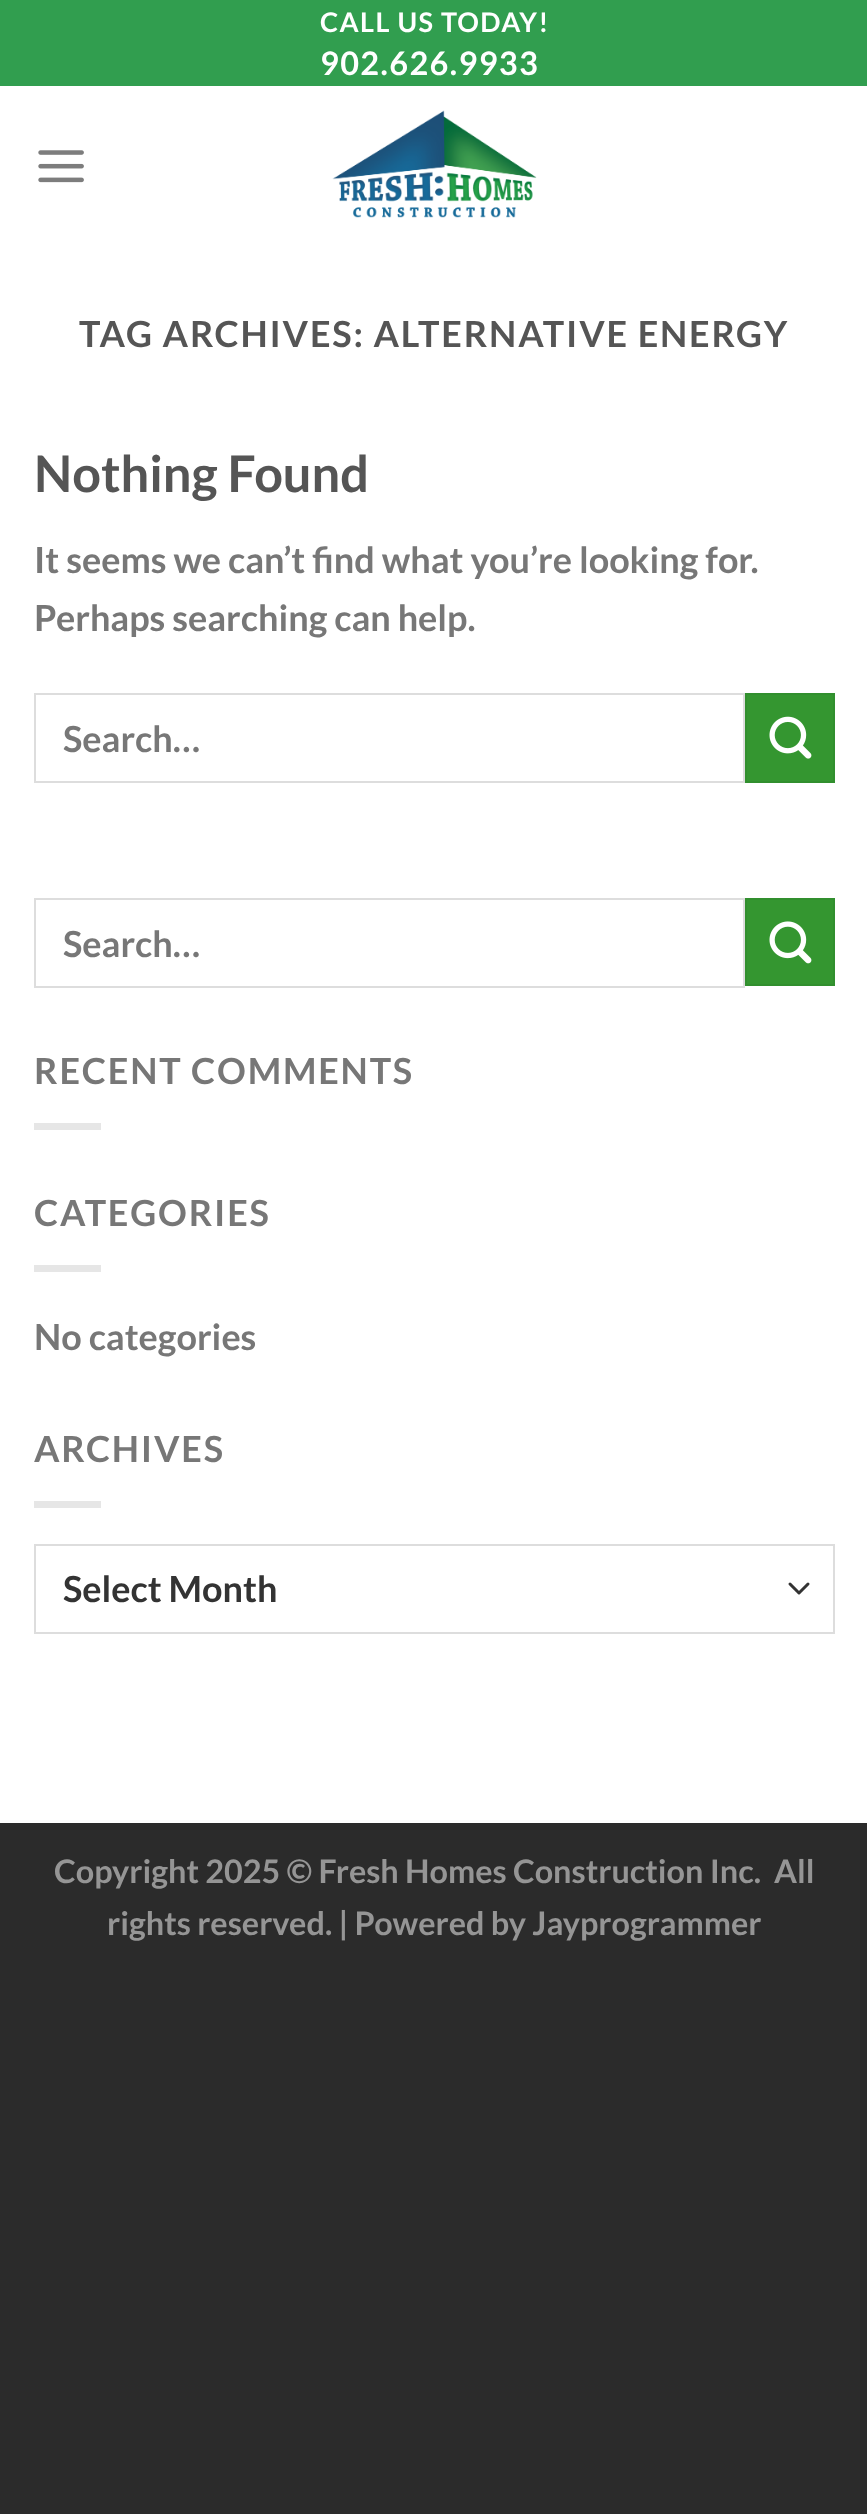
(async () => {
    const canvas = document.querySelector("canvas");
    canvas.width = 867;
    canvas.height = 2514;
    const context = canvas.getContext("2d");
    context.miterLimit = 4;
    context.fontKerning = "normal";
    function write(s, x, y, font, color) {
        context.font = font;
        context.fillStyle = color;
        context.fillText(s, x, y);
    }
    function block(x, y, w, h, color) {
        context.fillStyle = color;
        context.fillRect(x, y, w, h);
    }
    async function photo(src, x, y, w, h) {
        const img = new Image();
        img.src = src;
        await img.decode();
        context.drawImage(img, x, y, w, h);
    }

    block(0, 0, 867, 2514, "rgb(43, 43, 43)");
    block(0, 0, 867, 86, "rgb(49, 158, 79)");
    context.letterSpacing = "1.4px";
    write("CALL US TODAY!", 320, 32, "bold 27px Lato", "rgb(255, 255, 255)");
    write("902.626.9933", 320, 75, "bold 32.4px Lato", "rgb(255, 255, 255)");
    block(0, 86, 867, 1737, "rgb(255, 255, 255)");
    await photo("media/1.png", 38, 150, 46, 33);
    await photo("media/2.png", 332, 110, 205, 108);
    context.letterSpacing = "1.8px";
    write("TAG ARCHIVES: ALTERNATIVE ENERGY", 79, 347, "bold 36px Lato", "rgb(85, 85, 85)");
    context.letterSpacing = "0px";
    write("Nothing Found", 34, 492, "bold 50.5px Lato", "rgb(85, 85, 85)");
    write("It seems we can’t find what you’re looking for.", 34, 573, "bold 36px Lato", "rgb(119, 119, 119)");
    write("Perhaps searching can help.", 34, 631, "bold 36px Lato", "rgb(119, 119, 119)");
    context.strokeStyle = "rgb(221, 221, 221)";
    context.lineWidth = 2;
    context.strokeRect(35, 694, 709, 88);
    write("Search…", 63, 752, "bold 36px Lato", "rgb(119, 119, 119)");
    context.fillStyle = "rgb(52, 150, 48)";
    context.beginPath();
    context.rect(746, 694, 88, 88);
    context.fill();
    context.strokeStyle = "rgb(49, 143, 46)";
    context.stroke();
    await photo("media/3.png", 769, 716, 43, 43);
    context.strokeStyle = "rgb(221, 221, 221)";
    context.strokeRect(35, 899, 709, 88);
    write("Search…", 63, 957, "bold 36px Lato", "rgb(119, 119, 119)");
    context.fillStyle = "rgb(52, 150, 48)";
    context.beginPath();
    context.rect(746, 899, 88, 86);
    context.fill();
    context.strokeStyle = "rgb(49, 143, 46)";
    context.stroke();
    await photo("media/4.png", 769, 921, 43, 43);
    context.letterSpacing = "1.8px";
    write("RECENT COMMENTS", 34, 1084, "bold 36px Lato", "rgb(119, 119, 119)");
    block(34, 1123, 67, 7, "rgb(230, 230, 230)");
    write("CATEGORIES", 34, 1226, "bold 36px Lato", "rgb(119, 119, 119)");
    block(34, 1265, 67, 7, "rgb(230, 230, 230)");
    context.letterSpacing = "0px";
    write("No categories", 34, 1350, "bold 36px Lato", "rgb(119, 119, 119)");
    context.letterSpacing = "1.8px";
    write("ARCHIVES", 34, 1462, "bold 36px Lato", "rgb(119, 119, 119)");
    block(34, 1501, 67, 7, "rgb(230, 230, 230)");
    context.beginPath();
    context.moveTo(790, 1584);
    context.lineTo(799, 1593);
    context.lineTo(808, 1584);
    context.strokeStyle = "rgb(51, 51, 51)";
    context.lineWidth = 3;
    context.lineCap = "round";
    context.lineJoin = "round";
    context.stroke();
    context.strokeStyle = "rgb(221, 221, 221)";
    context.lineWidth = 2;
    context.lineJoin = "miter";
    context.strokeRect(35, 1545, 799, 88);
    context.letterSpacing = "0px";
    write("Select Month", 63, 1602, "bold 36px Lato", "rgb(51, 51, 51)");
    write("Copyright 2025 © Fresh Homes Construction Inc.", 54, 1883, "bold 32.4px Lato", "rgb(149, 149, 149)");
    write("All", 774, 1883, "bold 32.4px Lato", "rgb(149, 149, 149)");
    write("rights reserved. | Powered by Jayprogrammer", 107, 1935, "bold 32.4px Lato", "rgb(149, 149, 149)");
})();
